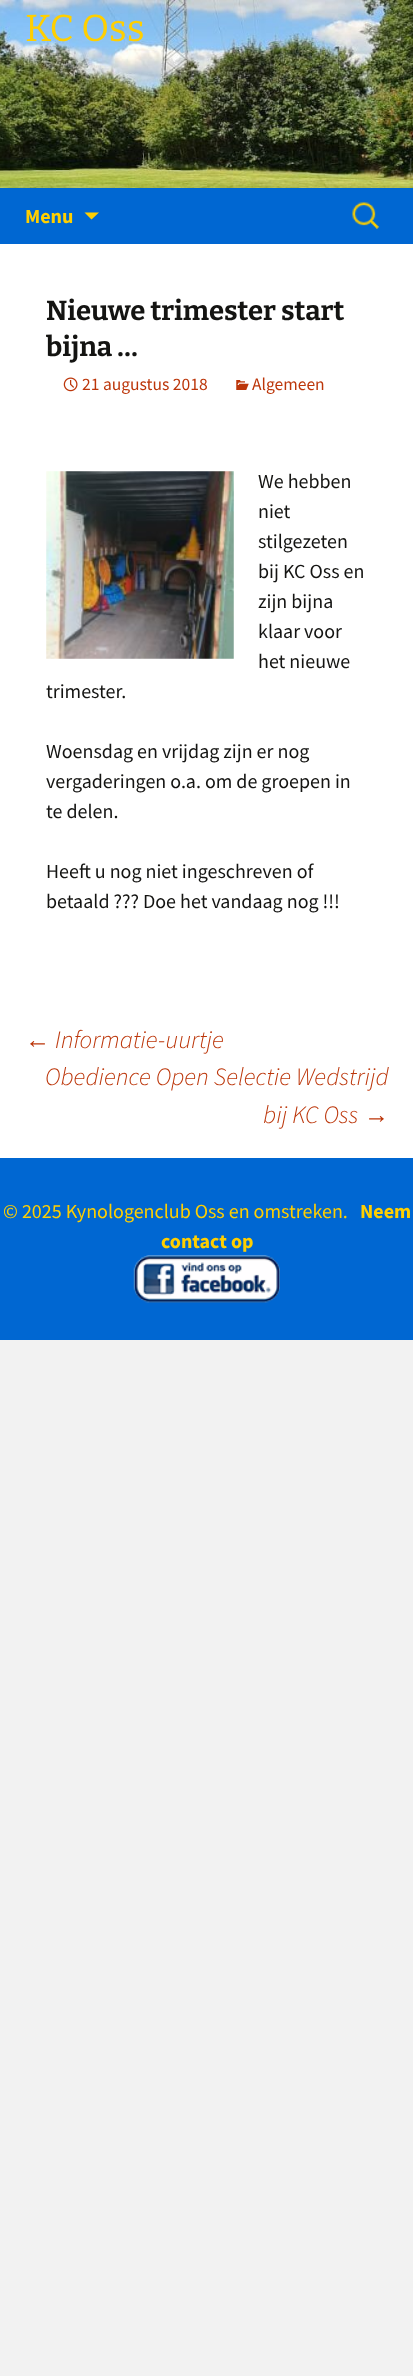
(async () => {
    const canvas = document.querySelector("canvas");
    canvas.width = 413;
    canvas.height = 2376;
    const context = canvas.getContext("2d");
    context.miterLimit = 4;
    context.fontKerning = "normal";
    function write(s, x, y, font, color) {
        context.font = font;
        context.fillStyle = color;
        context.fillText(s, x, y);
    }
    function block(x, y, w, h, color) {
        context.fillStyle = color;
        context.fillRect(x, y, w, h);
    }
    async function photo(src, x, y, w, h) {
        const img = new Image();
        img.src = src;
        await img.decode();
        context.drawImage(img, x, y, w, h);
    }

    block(0, 0, 413, 2376, "rgb(242, 242, 242)");
    block(0, 244, 413, 914, "rgb(255, 255, 255)");
    await photo("media/1.png", 0, 0, 413, 188);
    write("KC Oss", 25, 41, "100 37.5px Bitter", "rgb(255, 207, 0)");
    block(0, 188, 413, 56, "rgb(0, 103, 210)");
    write("Menu", 25, 223, "bold 20px Source Sans Pro", "rgb(255, 207, 0)");
    context.beginPath();
    context.moveTo(84.5, 212.5);
    context.lineTo(91.5, 219.5);
    context.lineTo(99, 212.5);
    context.closePath();
    context.fill();
    await photo("media/2.png", 352, 202, 27, 27);
    write("Nieuwe trimester start", 46, 320, "100 27.5px 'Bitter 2'", "rgb(20, 20, 18)");
    write("bijna …", 46, 356, "100 27.5px 'Bitter 2'", "rgb(20, 20, 18)");
    await photo("media/3.png", 63, 377, 15, 15);
    write("21 augustus 2018", 82, 390, "17.5px Source Sans Pro", "rgb(188, 54, 10)");
    await photo("media/4.png", 236, 380, 13, 10);
    write("Algemeen", 252, 390, "17.5px Source Sans Pro", "rgb(188, 54, 10)");
    await photo("media/5.png", 46, 471, 188, 188);
    write("We hebben", 258, 488, "20px Source Sans Pro", "rgb(20, 20, 18)");
    write("niet", 258, 518, "20px Source Sans Pro", "rgb(20, 20, 18)");
    write("stilgezeten", 258, 548, "20px Source Sans Pro", "rgb(20, 20, 18)");
    write("bij KC Oss en", 258, 578, "20px Source Sans Pro", "rgb(20, 20, 18)");
    write("zijn bijna", 258, 608, "20px Source Sans Pro", "rgb(20, 20, 18)");
    write("klaar voor", 258, 638, "20px Source Sans Pro", "rgb(20, 20, 18)");
    write("het nieuwe", 258, 668, "20px Source Sans Pro", "rgb(20, 20, 18)");
    write("trimester.", 46, 698, "20px Source Sans Pro", "rgb(20, 20, 18)");
    write("Woensdag en vrijdag zijn er nog", 46, 758, "20px Source Sans Pro", "rgb(20, 20, 18)");
    write("vergaderingen o.a. om de groepen in", 46, 788, "20px Source Sans Pro", "rgb(20, 20, 18)");
    write("te delen.", 46, 818, "20px Source Sans Pro", "rgb(20, 20, 18)");
    write("Heeft u nog niet ingeschreven of", 46, 878, "20px Source Sans Pro", "rgb(20, 20, 18)");
    write("betaald ??? Doe het vandaag nog !!!", 46, 908, "20px Source Sans Pro", "rgb(20, 20, 18)");
    write("←", 25, 1048, "italic 25px Liberation Sans", "rgb(188, 54, 10)");
    write("Informatie-uurtje", 55, 1048, "italic 300 25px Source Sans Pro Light", "rgb(188, 54, 10)");
    write("Obedience Open Selectie Wedstrijd", 45, 1085, "italic 300 25px Source Sans Pro Light", "rgb(188, 54, 10)");
    write("bij KC Oss", 263, 1123, "italic 300 25px Source Sans Pro Light", "rgb(188, 54, 10)");
    write("→", 364, 1123, "italic 25px Liberation Sans", "rgb(188, 54, 10)");
    block(0, 1158, 413, 182, "rgb(0, 103, 210)");
    write("© 2025 Kynologenclub Oss en omstreken.", 3, 1218, "20px Source Sans Pro", "rgb(255, 207, 0)");
    write("Neem", 360, 1218, "bold 20px Source Sans Pro", "rgb(255, 207, 0)");
    write("contact op", 161, 1248, "bold 20px Source Sans Pro", "rgb(255, 207, 0)");
    await photo("media/6.png", 133, 1255, 147, 48);
})();
